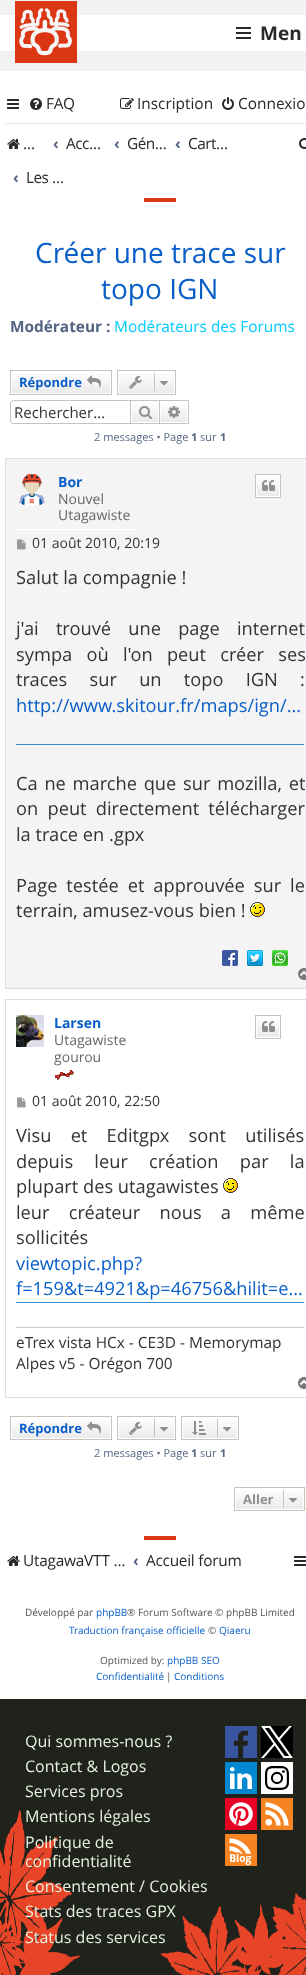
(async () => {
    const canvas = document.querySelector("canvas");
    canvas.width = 306;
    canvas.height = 1975;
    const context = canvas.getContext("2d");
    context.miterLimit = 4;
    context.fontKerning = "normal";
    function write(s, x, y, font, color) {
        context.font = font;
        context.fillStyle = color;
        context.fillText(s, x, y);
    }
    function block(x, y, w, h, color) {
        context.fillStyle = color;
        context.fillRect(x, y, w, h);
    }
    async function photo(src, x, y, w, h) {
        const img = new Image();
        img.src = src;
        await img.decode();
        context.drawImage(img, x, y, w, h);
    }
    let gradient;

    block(0, 0, 306, 1975, "rgb(255, 255, 255)");
    block(0, 0, 306, 71, "rgb(242, 242, 242)");
    block(0, 15, 306, 36, "rgb(255, 255, 255)");
    await photo("media/1.png", 15, 1, 62, 62);
    block(236, 27, 15, 2, "rgb(41, 41, 41)");
    block(236, 32, 15, 2, "rgb(41, 41, 41)");
    block(236, 37, 15, 2, "rgb(41, 41, 41)");
    write("Men", 260, 40, "bold 19px Open Sans", "rgb(41, 41, 41)");
    await photo("media/2.png", 7, 99, 12, 10);
    await photo("media/3.png", 30, 98, 12, 12);
    write("FAQ", 46, 109, "15.4px Open Sans", "rgb(41, 41, 41)");
    await photo("media/4.png", 120, 98, 14, 11);
    write("Inscription", 137, 109, "15.4px Open Sans", "rgb(41, 41, 41)");
    await photo("media/5.png", 222, 97, 12, 13);
    write("Connexio", 238, 109, "15.4px Open Sans", "rgb(41, 41, 41)");
    block(5, 123, 301, 1, "rgb(232, 232, 232)");
    await photo("media/6.png", 7, 139, 13, 10);
    context.letterSpacing = "-0.5px";
    write("…", 23, 149, "15.4px Open Sans", "rgb(41, 41, 41)");
    context.letterSpacing = "0px";
    write("‹", 53, 149, "bold 15.4px Open Sans", "rgb(83, 100, 130)");
    context.letterSpacing = "-0.5px";
    write("Acc…", 66, 149, "15.4px Open Sans", "rgb(41, 41, 41)");
    context.letterSpacing = "0px";
    write("‹", 114, 149, "bold 15.4px Open Sans", "rgb(83, 100, 130)");
    context.letterSpacing = "-0.5px";
    write("Gén…", 127, 149, "15.4px Open Sans", "rgb(41, 41, 41)");
    context.letterSpacing = "0px";
    write("‹", 175, 149, "bold 15.4px Open Sans", "rgb(83, 100, 130)");
    context.letterSpacing = "-0.5px";
    write("Cart…", 188, 149, "15.4px Open Sans", "rgb(41, 41, 41)");
    context.letterSpacing = "0px";
    write("‹", 13, 183, "bold 15.4px Open Sans", "rgb(83, 100, 130)");
    context.letterSpacing = "-0.5px";
    write("Les …", 26, 183, "15.4px Open Sans", "rgb(41, 41, 41)");
    await photo("media/7.png", 299, 138, 7, 11);
    block(144, 198, 32, 4, "rgb(219, 55, 20)");
    context.letterSpacing = "0px";
    write("Créer une trace sur", 35, 263, "28px Open Sans", "rgb(9, 94, 200)");
    write("topo IGN", 101, 299, "28px Open Sans", "rgb(9, 94, 200)");
    write("Modérateur :", 10, 332, "bold 15.4px Open Sans", "rgb(83, 100, 130)");
    write("Modérateurs des Forums", 114, 332, "15.4px Open Sans", "rgb(0, 204, 255)");
    gradient = context.createLinearGradient(61, 371, 61, 394);
    gradient.addColorStop(0, "rgb(255, 255, 255)");
    gradient.addColorStop(1, "rgb(233, 233, 233)");
    context.fillStyle = gradient;
    context.fillRect(12, 374, 98, 19);
    context.strokeStyle = "rgb(199, 195, 191)";
    context.strokeRect(10.5, 370.5, 101, 24);
    write("Répondre", 19, 387, "bold 13px Open Sans", "rgb(9, 94, 200)");
    await photo("media/8.png", 87, 375, 14, 13);
    gradient = context.createLinearGradient(147, 371, 147, 394);
    gradient.addColorStop(0, "rgb(255, 255, 255)");
    gradient.addColorStop(1, "rgb(233, 233, 233)");
    context.fillStyle = gradient;
    context.fillRect(119, 374, 55, 19);
    context.strokeRect(117.5, 370.5, 58, 24);
    await photo("media/9.png", 129, 376, 13, 13);
    block(154, 373, 1, 18, "rgb(199, 195, 191)");
    await photo("media/10.png", 160, 381, 8, 5);
    context.beginPath();
    context.moveTo(14, 400);
    context.lineTo(130, 400);
    context.lineTo(130, 424);
    context.lineTo(14, 424);
    context.bezierCurveTo(12, 424, 10, 422, 10, 420);
    context.lineTo(10, 404);
    context.bezierCurveTo(10, 402, 12, 400, 14, 400);
    context.closePath();
    context.moveTo(14, 401);
    context.lineTo(130, 401);
    context.lineTo(130, 423);
    context.lineTo(14, 423);
    context.bezierCurveTo(12, 423, 11, 422, 11, 420);
    context.lineTo(11, 404);
    context.bezierCurveTo(11, 402, 12, 401, 14, 401);
    context.closePath();
    context.fill("evenodd");
    write("Rechercher…", 14, 418, "15px Open Sans", "rgb(51, 51, 51)");
    gradient = context.createLinearGradient(145, 401, 145, 423);
    gradient.addColorStop(0, "rgb(255, 255, 255)");
    gradient.addColorStop(1, "rgb(233, 233, 233)");
    context.fillStyle = gradient;
    context.fillRect(132, 404, 26, 18);
    context.strokeRect(130.5, 400.5, 29, 23);
    await photo("media/11.png", 139, 406, 13, 13);
    gradient = context.createLinearGradient(174, 401, 174, 423);
    gradient.addColorStop(0, "rgb(255, 255, 255)");
    gradient.addColorStop(1, "rgb(233, 233, 233)");
    context.fillStyle = gradient;
    context.fillRect(161, 404, 26, 18);
    block(160, 400, 29, 1, "rgb(199, 195, 191)");
    block(188, 400, 1, 24, "rgb(199, 195, 191)");
    block(160, 423, 29, 1, "rgb(199, 195, 191)");
    await photo("media/12.png", 168, 406, 12, 12);
    write("2 messages • Page", 94, 441, "11px Open Sans", "rgb(83, 100, 130)");
    write("1", 191, 441, "bold 11px Open Sans", "rgb(83, 100, 130)");
    write("sur", 200, 441, "11px Open Sans", "rgb(83, 100, 130)");
    write("1", 220, 441, "bold 11px Open Sans", "rgb(83, 100, 130)");
    context.fillStyle = "rgb(244, 244, 244)";
    context.beginPath();
    context.rect(5.5, 458.5, 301, 530);
    context.fill();
    context.strokeStyle = "rgb(221, 221, 221)";
    context.stroke();
    block(16, 529, 122, 1, "rgb(255, 255, 255)");
    await photo("media/13.png", 19, 474, 26, 32);
    write("Bor", 58, 487, "bold 14px Open Sans", "rgb(9, 94, 200)");
    write("Nouvel", 58, 504, "14px Open Sans", "rgb(102, 102, 102)");
    write("Utagawiste", 58, 520, "14px Open Sans", "rgb(102, 102, 102)");
    gradient = context.createLinearGradient(268, 475, 268, 497);
    gradient.addColorStop(0, "rgb(255, 255, 255)");
    gradient.addColorStop(1, "rgb(233, 233, 233)");
    context.fillStyle = gradient;
    context.fillRect(257, 476, 22, 20);
    context.strokeStyle = "rgb(255, 255, 255)";
    context.strokeRect(256.5, 475.5, 23, 21);
    context.strokeStyle = "rgb(199, 195, 191)";
    context.strokeRect(255.5, 474.5, 25, 23);
    await photo("media/14.png", 262, 480, 13, 11);
    await photo("media/15.png", 17, 539, 9, 11);
    write("01 août 2010, 20:19", 32, 548, "14px Open Sans", "rgb(51, 51, 51)");
    write("Salut la compagnie !", 16, 584, "18.25px Open Sans", "rgb(51, 51, 51)");
    context.wordSpacing = "12.5px";
    write("j'ai trouvé une page internet", 16, 635, "18.25px Open Sans", "rgb(51, 51, 51)");
    context.wordSpacing = "9.5px";
    write("sympa où l'on peut créer ses", 16, 661, "18.25px Open Sans", "rgb(51, 51, 51)");
    context.wordSpacing = "17.5px";
    write("traces sur un topo IGN :", 16, 686, "18.25px Open Sans", "rgb(51, 51, 51)");
    block(16, 744, 288, 1, "rgb(54, 138, 210)");
    context.wordSpacing = "0px";
    write("http://www.skitour.fr/maps/ign/…", 16, 712, "18.25px Open Sans", "rgb(9, 94, 200)");
    context.wordSpacing = "2px";
    write("Ca ne marche que sur mozilla, et", 16, 790, "18.25px Open Sans", "rgb(51, 51, 51)");
    context.wordSpacing = "4.5px";
    write("on peut directement télécharger", 16, 815, "18.25px Open Sans", "rgb(51, 51, 51)");
    context.wordSpacing = "0px";
    write("la trace en .gpx", 16, 841, "18.25px Open Sans", "rgb(51, 51, 51)");
    context.wordSpacing = "4.25px";
    write("Page testée et approuvée sur le", 16, 892, "18.25px Open Sans", "rgb(51, 51, 51)");
    context.wordSpacing = "0px";
    write("terrain, amusez-vous bien !", 16, 917, "18.25px Open Sans", "rgb(51, 51, 51)");
    await photo("media/16.png", 250, 902, 15, 15);
    await photo("media/17.png", 222, 950, 16, 16);
    await photo("media/18.png", 247, 950, 16, 16);
    await photo("media/19.png", 272, 950, 16, 16);
    await photo("media/20.png", 298, 968, 8, 12);
    context.strokeStyle = "rgb(221, 221, 221)";
    context.strokeRect(5.5, 999.5, 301, 398);
    await photo("media/21.png", 16, 1015, 28, 32);
    write("Larsen", 54, 1028, "bold 14px Open Sans", "rgb(9, 94, 200)");
    write("Utagawiste", 54, 1045, "14px Open Sans", "rgb(102, 102, 102)");
    write("gourou", 54, 1062, "14px Open Sans", "rgb(102, 102, 102)");
    await photo("media/22.png", 55, 1070, 19, 10);
    gradient = context.createLinearGradient(268, 1016, 268, 1038);
    gradient.addColorStop(0, "rgb(255, 255, 255)");
    gradient.addColorStop(1, "rgb(233, 233, 233)");
    context.fillStyle = gradient;
    context.fillRect(257, 1019, 22, 18);
    context.strokeStyle = "rgb(199, 195, 191)";
    context.strokeRect(255.5, 1015.5, 25, 23);
    await photo("media/14.png", 262, 1021, 13, 11);
    await photo("media/23.png", 17, 1097, 9, 11);
    write("01 août 2010, 22:50", 32, 1106, "14px Open Sans", "rgb(51, 51, 51)");
    context.wordSpacing = "14.5px";
    write("Visu et Editgpx sont utilisés", 16, 1142, "18.25px Open Sans", "rgb(51, 51, 51)");
    context.wordSpacing = "16.5px";
    write("depuis leur création par la", 16, 1168, "18.25px Open Sans", "rgb(51, 51, 51)");
    context.wordSpacing = "0px";
    write("plupart des utagawistes", 16, 1193, "18.25px Open Sans", "rgb(51, 51, 51)");
    await photo("media/24.png", 223, 1178, 15, 15);
    context.wordSpacing = "14.5px";
    write("leur créateur nous a même", 16, 1219, "18.25px Open Sans", "rgb(51, 51, 51)");
    context.wordSpacing = "0px";
    write("sollicités", 16, 1244, "18.25px Open Sans", "rgb(51, 51, 51)");
    block(16, 1302, 288, 1, "rgb(54, 138, 210)");
    write("viewtopic.php?", 16, 1270, "18.25px Open Sans", "rgb(9, 94, 200)");
    write("f=159&t=4921&p=46756&hilit=e…", 16, 1295, "18.25px Open Sans", "rgb(9, 94, 200)");
    block(16, 1327, 288, 1, "rgb(204, 204, 204)");
    write("eTrex vista HCx - CE3D - Memorymap", 16, 1348, "15.4px Open Sans", "rgb(51, 51, 51)");
    write("Alpes v5 - Orégon 700", 16, 1369, "15.4px Open Sans", "rgb(51, 51, 51)");
    await photo("media/25.png", 298, 1377, 8, 12);
    gradient = context.createLinearGradient(61, 1417, 61, 1439);
    gradient.addColorStop(0, "rgb(255, 255, 255)");
    gradient.addColorStop(1, "rgb(233, 233, 233)");
    context.fillStyle = gradient;
    context.fillRect(12, 1420, 98, 18);
    context.strokeRect(10.5, 1416.5, 101, 23);
    write("Répondre", 19, 1433, "bold 13px Open Sans", "rgb(9, 94, 200)");
    await photo("media/8.png", 87, 1421, 14, 13);
    gradient = context.createLinearGradient(147, 1417, 147, 1439);
    gradient.addColorStop(0, "rgb(255, 255, 255)");
    gradient.addColorStop(1, "rgb(233, 233, 233)");
    context.fillStyle = gradient;
    context.fillRect(119, 1420, 55, 18);
    context.strokeRect(117.5, 1416.5, 58, 23);
    await photo("media/9.png", 129, 1422, 13, 13);
    block(154, 1419, 1, 18, "rgb(199, 195, 191)");
    await photo("media/10.png", 160, 1427, 8, 5);
    gradient = context.createLinearGradient(210, 1417, 210, 1439);
    gradient.addColorStop(0, "rgb(255, 255, 255)");
    gradient.addColorStop(1, "rgb(233, 233, 233)");
    context.fillStyle = gradient;
    context.fillRect(183, 1420, 54, 18);
    context.strokeRect(181.5, 1416.5, 57, 23);
    await photo("media/26.png", 192, 1421, 14, 14);
    block(217, 1419, 1, 18, "rgb(199, 195, 191)");
    await photo("media/10.png", 223, 1427, 8, 5);
    write("2 messages • Page", 94, 1457, "11px Open Sans", "rgb(83, 100, 130)");
    write("1", 191, 1457, "bold 11px Open Sans", "rgb(83, 100, 130)");
    write("sur", 200, 1457, "11px Open Sans", "rgb(83, 100, 130)");
    write("1", 220, 1457, "bold 11px Open Sans", "rgb(83, 100, 130)");
    gradient = context.createLinearGradient(270, 1488, 270, 1510);
    gradient.addColorStop(0, "rgb(255, 255, 255)");
    gradient.addColorStop(1, "rgb(233, 233, 233)");
    context.fillStyle = gradient;
    context.fillRect(236, 1491, 67, 18);
    context.strokeRect(234.5, 1487.5, 70, 23);
    write("Aller", 243, 1504, "bold 13px Open Sans", "rgb(143, 143, 143)");
    block(283, 1490, 1, 18, "rgb(199, 195, 191)");
    await photo("media/10.png", 289, 1498, 8, 5);
    block(144, 1536, 32, 4, "rgb(219, 55, 20)");
    await photo("media/6.png", 7, 1556, 13, 10);
    context.letterSpacing = "-0.25px";
    write("UtagawaVTT …", 23, 1566, "15.4px Open Sans", "rgb(41, 41, 41)");
    context.letterSpacing = "0px";
    write("‹", 133, 1566, "bold 15.4px Open Sans", "rgb(83, 100, 130)");
    context.letterSpacing = "-0.25px";
    write("Accueil forum", 146, 1566, "15.4px Open Sans", "rgb(41, 41, 41)");
    await photo("media/2.png", 294, 1556, 12, 10);
    context.letterSpacing = "0px";
    write("Développé par", 25, 1616, "10px Open Sans", "rgb(85, 85, 85)");
    write("phpBB", 96, 1616, "10px Open Sans", "rgb(9, 94, 200)");
    write("® Forum Software © phpBB Limited", 127, 1616, "10px Open Sans", "rgb(85, 85, 85)");
    write("Traduction française officielle", 69, 1634, "10px Open Sans", "rgb(9, 94, 200)");
    write("©", 208, 1634, "10px Open Sans", "rgb(85, 85, 85)");
    write("Qiaeru", 219, 1634, "10px Open Sans", "rgb(9, 94, 200)");
    write("Optimized by:", 100, 1664, "10px Open Sans", "rgb(85, 85, 85)");
    write("phpBB SEO", 167, 1664, "10px Open Sans", "rgb(9, 94, 200)");
    write("Confidentialité", 96, 1680, "10px Open Sans", "rgb(9, 94, 200)");
    write("|", 166, 1680, "10px Open Sans", "rgb(85, 85, 85)");
    write("Conditions", 174, 1680, "10px Open Sans", "rgb(9, 94, 200)");
    block(0, 1699, 306, 276, "rgb(32, 34, 28)");
    write("Qui sommes-nous ?", 25, 1747, "16px Open Sans", "rgb(232, 241, 223)");
    write("Contact & Logos", 25, 1772, "16px Open Sans", "rgb(232, 241, 223)");
    write("Services pros", 25, 1797, "16px Open Sans", "rgb(232, 241, 223)");
    await photo("media/34.png", 0, 1810, 80, 165);
    write("Mentions légales", 25, 1822, "16px Open Sans", "rgb(232, 241, 223)");
    write("Politique de", 25, 1848, "16px Open Sans", "rgb(232, 241, 223)");
    write("confidentialité", 25, 1867, "16px Open Sans", "rgb(232, 241, 223)");
    write("Consentement / Cookies", 25, 1892, "16px Open Sans", "rgb(232, 241, 223)");
    await photo("media/35.png", 160, 1893, 146, 82);
    write("Stats des traces GPX", 25, 1917, "16px Open Sans", "rgb(232, 241, 223)");
    write("Status des services", 25, 1943, "16px Open Sans", "rgb(232, 241, 223)");
    await photo("media/27.png", 225, 1726, 32, 32);
    await photo("media/28.png", 261, 1726, 32, 32);
    await photo("media/29.png", 225, 1762, 32, 32);
    await photo("media/30.png", 261, 1762, 32, 32);
    await photo("media/31.png", 225, 1798, 32, 32);
    await photo("media/32.png", 261, 1798, 32, 32);
    await photo("media/33.png", 225, 1834, 32, 32);
})();
